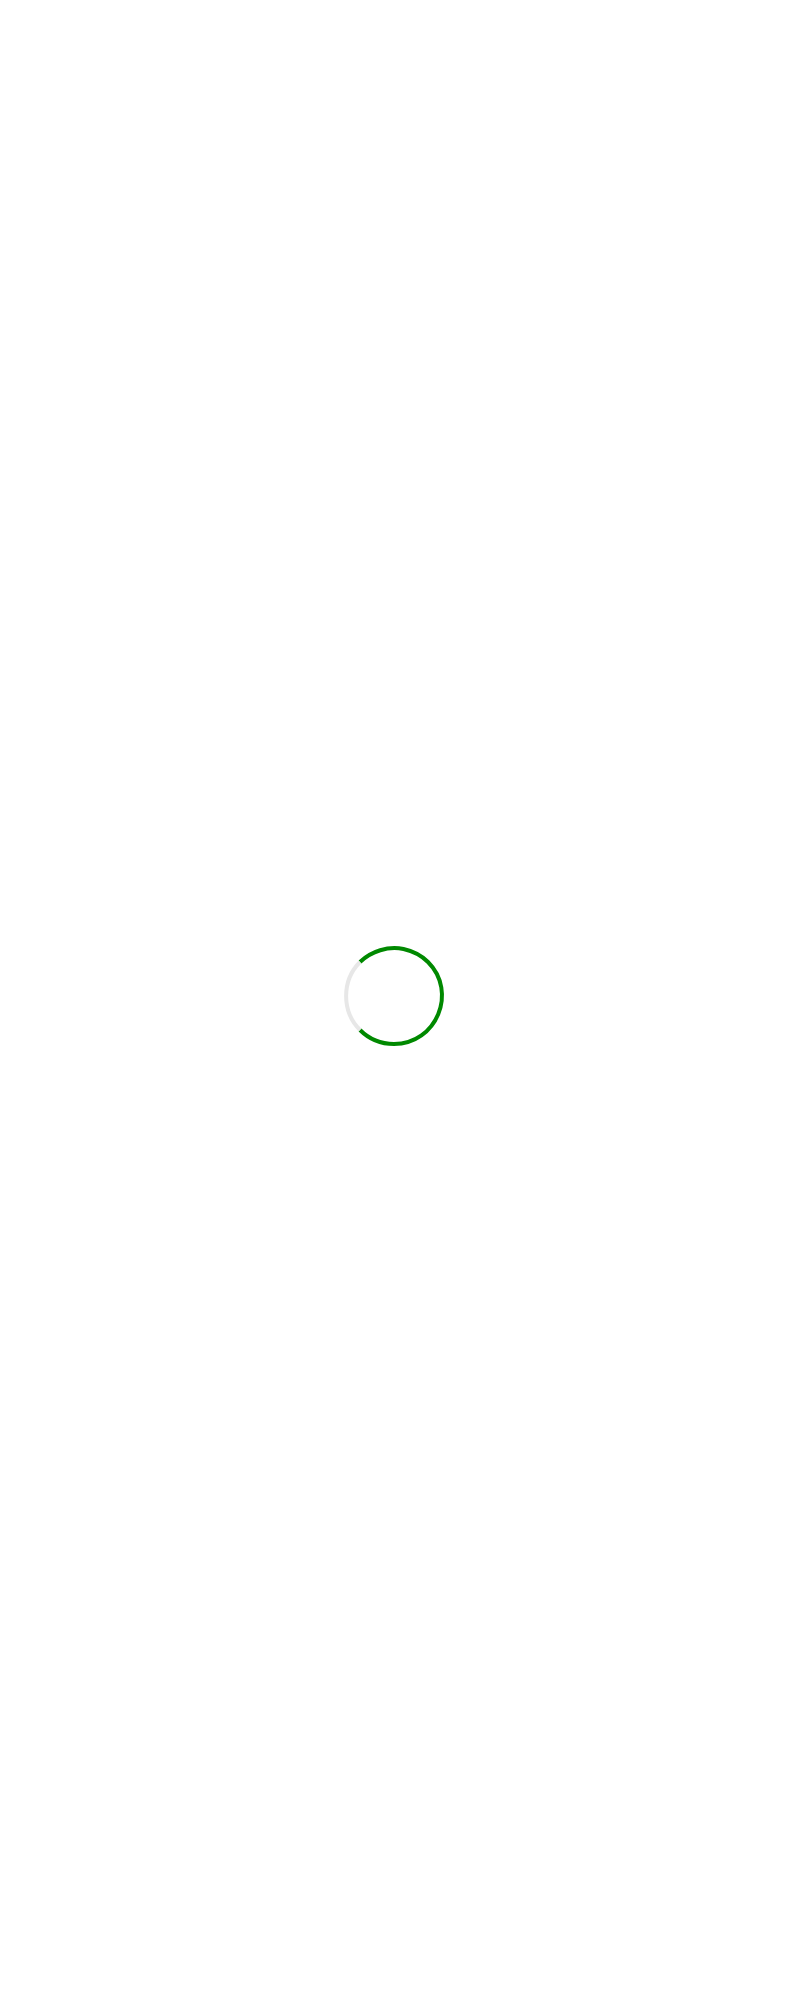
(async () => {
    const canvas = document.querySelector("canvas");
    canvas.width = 786;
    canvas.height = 1991;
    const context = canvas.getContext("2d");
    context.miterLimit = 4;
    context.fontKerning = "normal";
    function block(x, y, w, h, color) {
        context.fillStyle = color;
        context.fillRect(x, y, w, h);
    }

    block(0, 0, 786, 1991, "rgb(255, 255, 255)");
    context.beginPath();
    context.moveTo(360, 962);
    context.bezierCurveTo(371.5, 951, 388, 946, 403.5, 949);
    context.bezierCurveTo(412.5, 951, 421.5, 955.5, 428, 962);
    context.bezierCurveTo(458, 992, 436.5, 1044, 394, 1044);
    context.bezierCurveTo(381.5, 1044, 369, 1039, 360, 1030);
    context.strokeStyle = "rgb(0, 137, 0)";
    context.lineWidth = 4;
    context.stroke();
    context.beginPath();
    context.moveTo(360, 1030);
    context.bezierCurveTo(341.5, 1011.5, 341.5, 980.5, 360, 962);
    context.strokeStyle = "rgb(231, 231, 231)";
    context.stroke();
})();
